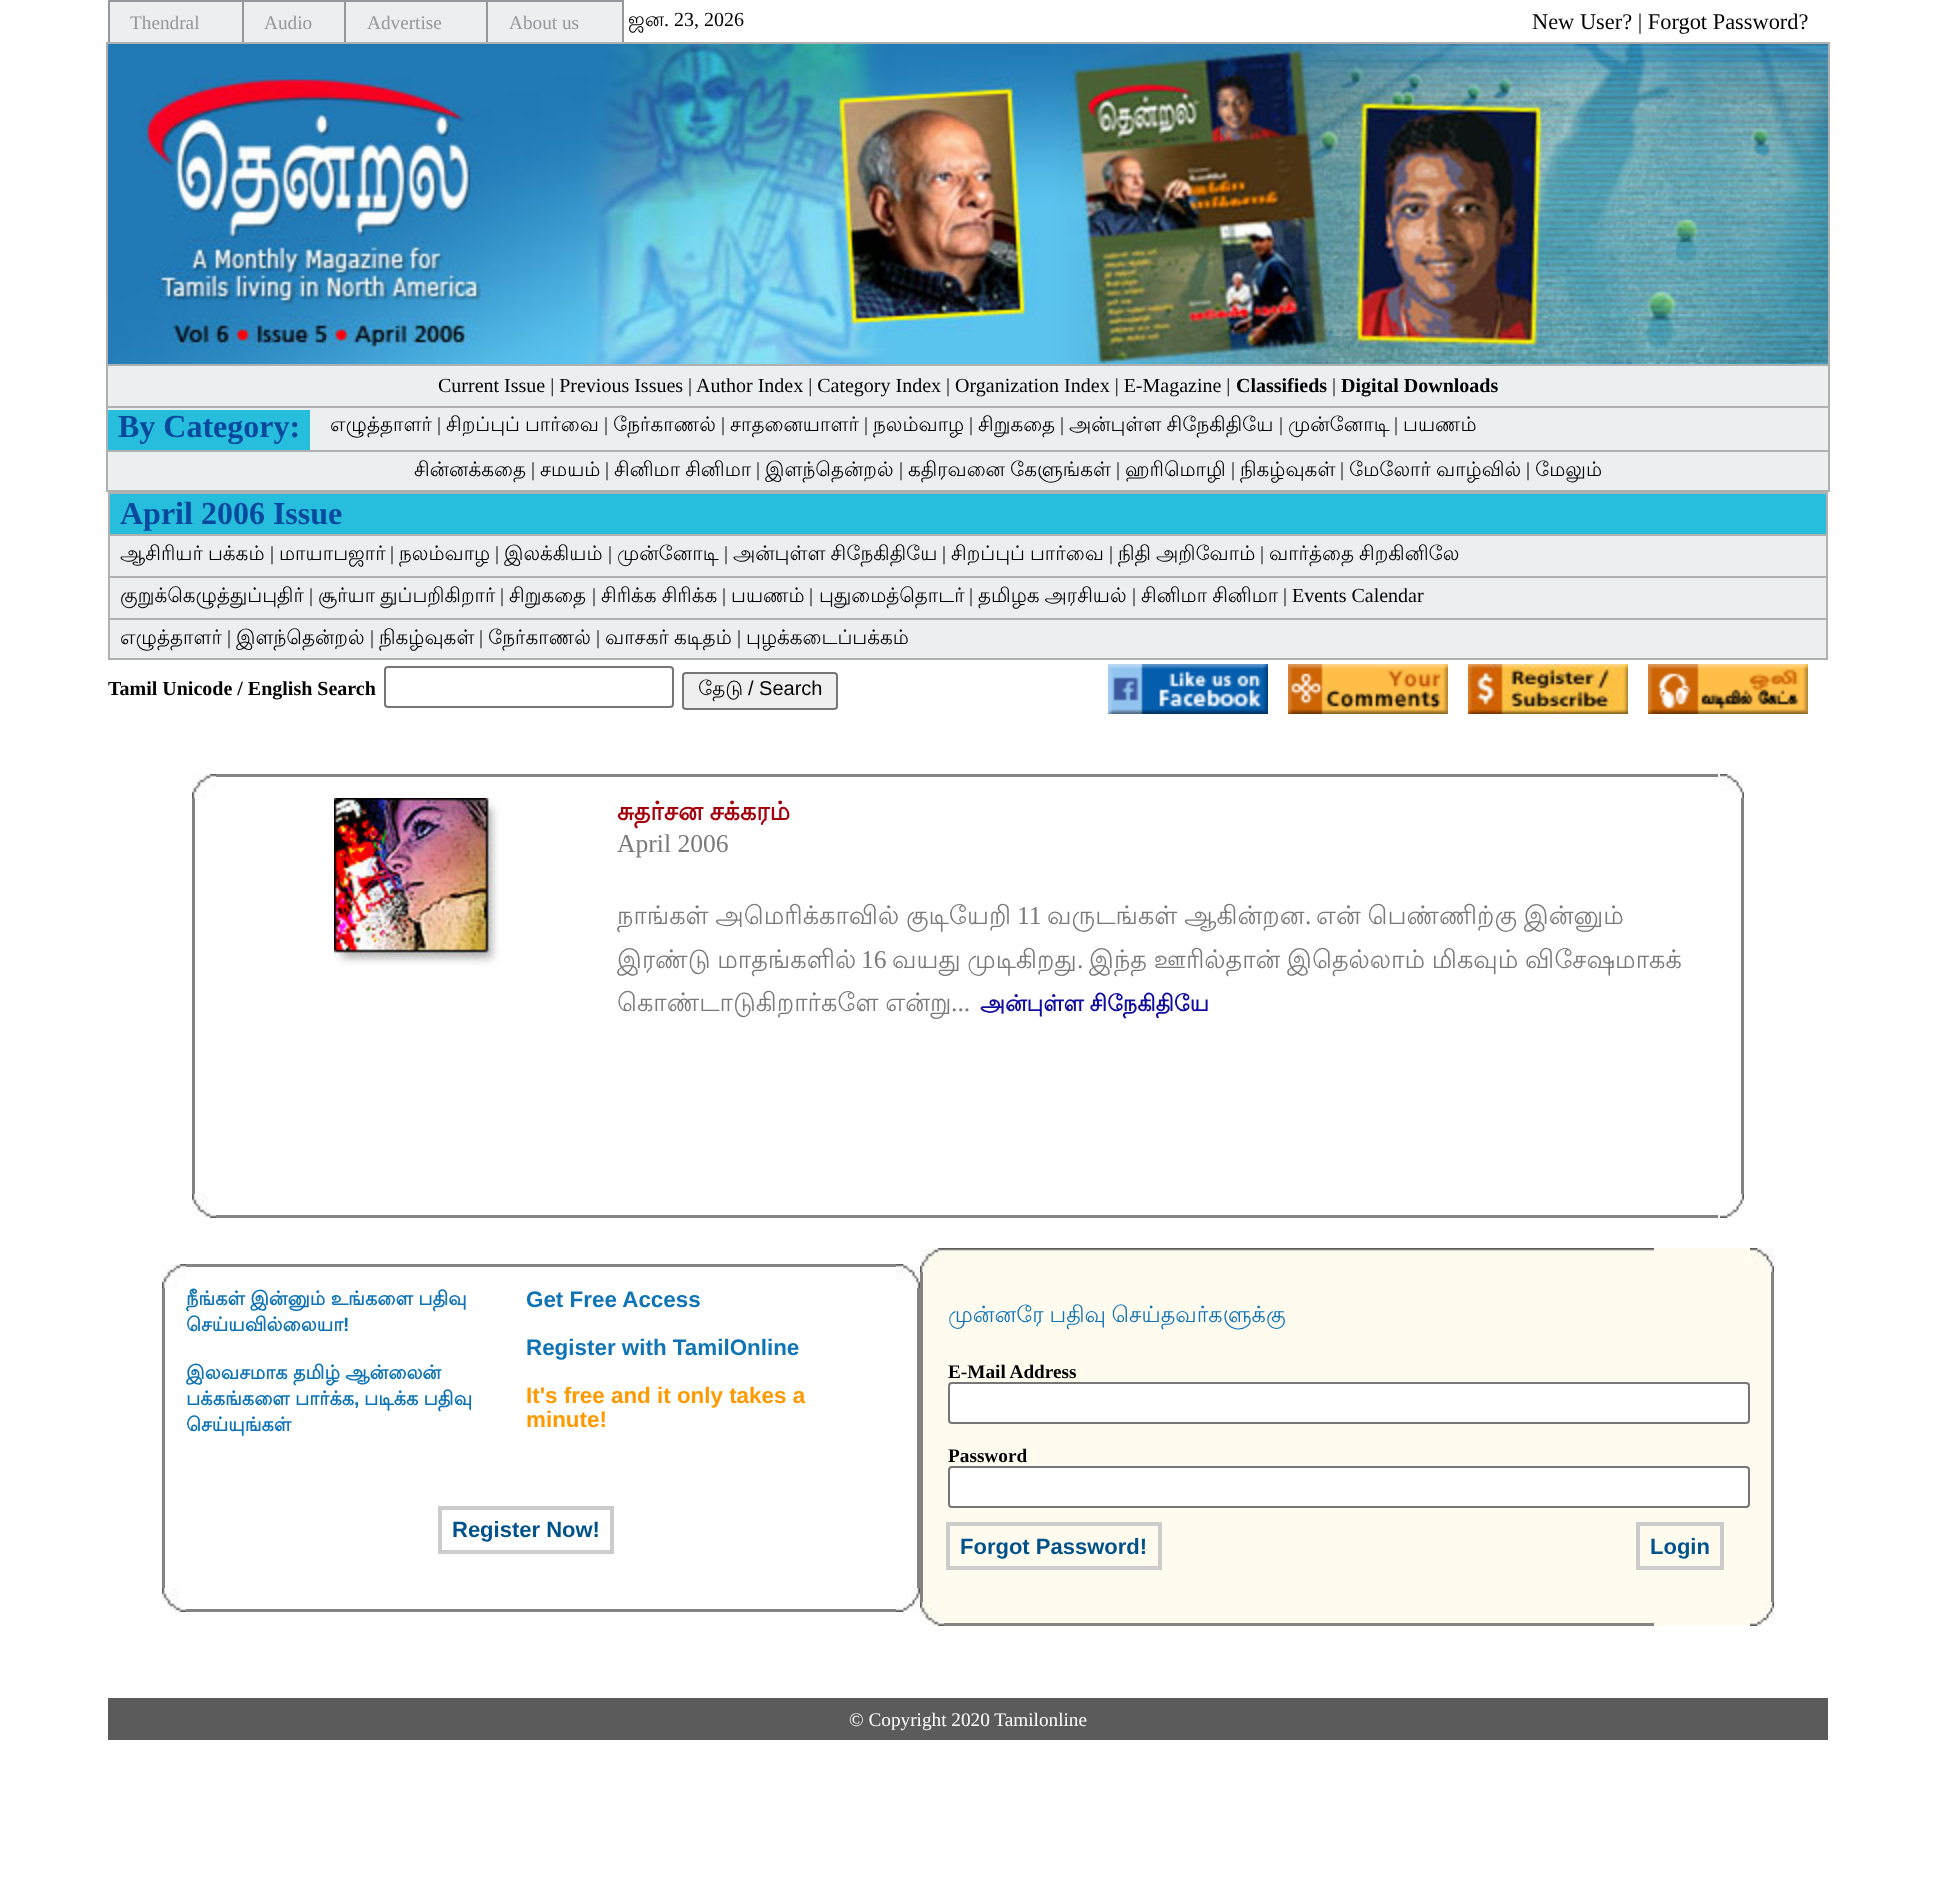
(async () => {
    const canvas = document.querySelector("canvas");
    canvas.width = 1935;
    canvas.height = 1878;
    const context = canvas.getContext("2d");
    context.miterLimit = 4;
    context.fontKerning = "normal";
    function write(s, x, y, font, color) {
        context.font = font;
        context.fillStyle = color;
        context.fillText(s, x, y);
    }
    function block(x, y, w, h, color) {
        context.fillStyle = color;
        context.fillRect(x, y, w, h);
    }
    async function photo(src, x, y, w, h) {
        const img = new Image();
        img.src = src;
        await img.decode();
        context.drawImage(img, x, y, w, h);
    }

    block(0, 0, 1935, 1878, "rgb(255, 255, 255)");
    block(110, 2, 512, 40, "rgb(235, 239, 240)");
    block(108, 0, 516, 2, "rgb(148, 151, 155)");
    block(242, 0, 2, 42, "rgb(148, 151, 155)");
    block(108, 0, 2, 42, "rgb(148, 151, 155)");
    write("Thendral", 130, 29, "19.25px Liberation Serif", "rgb(148, 151, 155)");
    block(344, 0, 2, 42, "rgb(148, 151, 155)");
    write("Audio", 264, 29, "19.25px Liberation Serif", "rgb(148, 151, 155)");
    block(486, 0, 2, 42, "rgb(148, 151, 155)");
    write("Advertise", 367, 29, "19.25px Liberation Serif", "rgb(148, 151, 155)");
    block(622, 0, 2, 42, "rgb(148, 151, 155)");
    write("About us", 509, 29, "19.25px Liberation Serif", "rgb(148, 151, 155)");
    write("ஜன", 628, 26, "20px Lohit Tamil", "rgb(0, 0, 0)");
    write(". 23, 2026", 664, 26, "20px Liberation Serif", "rgb(0, 0, 0)");
    write("New User? | Forgot Password?", 1532, 29, "22.4px Liberation Serif", "rgb(0, 0, 0)");
    block(108, 366, 1720, 124, "rgb(235, 239, 240)");
    block(106, 42, 1724, 2, "rgb(176, 176, 176)");
    block(108, 364, 1722, 2, "rgb(176, 176, 176)");
    block(108, 406, 1722, 2, "rgb(176, 176, 176)");
    block(108, 450, 1722, 2, "rgb(176, 176, 176)");
    block(1828, 42, 2, 450, "rgb(176, 176, 176)");
    block(106, 490, 1724, 2, "rgb(176, 176, 176)");
    block(106, 42, 2, 450, "rgb(176, 176, 176)");
    await photo("media/1.png", 108, 44, 1720, 320);
    write("Current Issue | Previous Issues", 438, 392, "20px Liberation Serif", "rgb(0, 0, 0)");
    write("|", 688, 392, "20px Liberation Serif", "rgb(0, 0, 0)");
    write("Author Index | Category Index | Organization Index | E-Magazine |", 696, 392, "20px Liberation Serif", "rgb(0, 0, 0)");
    write("Classifieds", 1236, 392, "bold 20px Liberation Serif", "rgb(0, 0, 0)");
    write("|", 1332, 392, "20px Liberation Serif", "rgb(0, 0, 0)");
    write("Digital Downloads", 1341, 392, "bold 20px Liberation Serif", "rgb(0, 0, 0)");
    block(108, 410, 202, 40, "rgb(39, 190, 221)");
    write("By Category:", 118, 437, "bold 32px Liberation Serif", "rgb(8, 73, 157)");
    write("எழுத்தாளர்", 330, 431, "20px Lohit Tamil", "rgb(0, 0, 0)");
    write("|", 437, 431, "20px Liberation Serif", "rgb(0, 0, 0)");
    context.wordSpacing = "-1px";
    write("சிறப்புப் பார்வை", 446, 431, "20px Lohit Tamil", "rgb(0, 0, 0)");
    context.wordSpacing = "0px";
    write("|", 604, 431, "20px Liberation Serif", "rgb(0, 0, 0)");
    write("நேர்காணல்", 613, 431, "20px Lohit Tamil", "rgb(0, 0, 0)");
    write("|", 721, 431, "20px Liberation Serif", "rgb(0, 0, 0)");
    write("சாதனையாளர்", 730, 431, "20px Lohit Tamil", "rgb(0, 0, 0)");
    write("|", 864, 431, "20px Liberation Serif", "rgb(0, 0, 0)");
    write("நலம்வாழ", 873, 431, "20px Lohit Tamil", "rgb(0, 0, 0)");
    write("|", 969, 431, "20px Liberation Serif", "rgb(0, 0, 0)");
    write("சிறுகதை", 978, 431, "20px Lohit Tamil", "rgb(0, 0, 0)");
    write("|", 1060, 431, "20px Liberation Serif", "rgb(0, 0, 0)");
    context.wordSpacing = "-1px";
    write("அன்புள்ள சிநேகிதியே", 1069, 431, "20px Lohit Tamil", "rgb(0, 0, 0)");
    context.wordSpacing = "0px";
    write("|", 1279, 431, "20px Liberation Serif", "rgb(0, 0, 0)");
    write("முன்னோடி", 1288, 431, "20px Lohit Tamil", "rgb(0, 0, 0)");
    write("|", 1394, 431, "20px Liberation Serif", "rgb(0, 0, 0)");
    write("பயணம்", 1403, 431, "20px Lohit Tamil", "rgb(0, 0, 0)");
    write("சின்னக்கதை", 414, 476, "20px Lohit Tamil", "rgb(0, 0, 0)");
    write("|", 531, 476, "20px Liberation Serif", "rgb(0, 0, 0)");
    write("சமயம்", 540, 476, "20px Lohit Tamil", "rgb(0, 0, 0)");
    write("|", 605, 476, "20px Liberation Serif", "rgb(0, 0, 0)");
    context.wordSpacing = "-1px";
    write("சினிமா சினிமா", 614, 476, "20px Lohit Tamil", "rgb(0, 0, 0)");
    context.wordSpacing = "0px";
    write("|", 756, 476, "20px Liberation Serif", "rgb(0, 0, 0)");
    write("இளந்தென்றல்", 765, 476, "20px Lohit Tamil", "rgb(0, 0, 0)");
    write("|", 899, 476, "20px Liberation Serif", "rgb(0, 0, 0)");
    context.wordSpacing = "-1px";
    write("கதிரவனை கேளுங்கள்", 908, 476, "20px Lohit Tamil", "rgb(0, 0, 0)");
    context.wordSpacing = "0px";
    write("|", 1116, 476, "20px Liberation Serif", "rgb(0, 0, 0)");
    write("ஹரிமொழி", 1125, 476, "20px Lohit Tamil", "rgb(0, 0, 0)");
    write("|", 1231, 476, "20px Liberation Serif", "rgb(0, 0, 0)");
    write("நிகழ்வுகள்", 1240, 476, "20px Lohit Tamil", "rgb(0, 0, 0)");
    write("|", 1340, 476, "20px Liberation Serif", "rgb(0, 0, 0)");
    context.wordSpacing = "-1px";
    write("மேலோர் வாழ்வில்", 1349, 476, "20px Lohit Tamil", "rgb(0, 0, 0)");
    context.wordSpacing = "0px";
    write("|", 1526, 476, "20px Liberation Serif", "rgb(0, 0, 0)");
    write("மேலும்", 1535, 476, "20px Lohit Tamil", "rgb(0, 0, 0)");
    block(110, 536, 1716, 122, "rgb(235, 239, 240)");
    block(108, 492, 1720, 2, "rgb(176, 176, 176)");
    block(110, 534, 1718, 2, "rgb(176, 176, 176)");
    block(110, 576, 1718, 2, "rgb(176, 176, 176)");
    block(110, 618, 1718, 2, "rgb(176, 176, 176)");
    block(1826, 492, 2, 168, "rgb(176, 176, 176)");
    block(108, 658, 1720, 2, "rgb(176, 176, 176)");
    block(108, 492, 2, 168, "rgb(176, 176, 176)");
    block(110, 494, 1716, 40, "rgb(39, 190, 221)");
    write("April 2006 Issue", 120, 524, "bold 32px Liberation Serif", "rgb(8, 73, 157)");
    context.wordSpacing = "-1px";
    write("ஆசிரியர் பக்கம்", 120, 560, "20px Lohit Tamil", "rgb(0, 0, 0)");
    context.wordSpacing = "0px";
    write("|", 270, 560, "20px Liberation Serif", "rgb(0, 0, 0)");
    write("மாயாபஜார்", 279, 560, "20px Lohit Tamil", "rgb(0, 0, 0)");
    write("|", 390, 560, "20px Liberation Serif", "rgb(0, 0, 0)");
    write("நலம்வாழ", 399, 560, "20px Lohit Tamil", "rgb(0, 0, 0)");
    write("|", 495, 560, "20px Liberation Serif", "rgb(0, 0, 0)");
    write("இலக்கியம்", 504, 560, "20px Lohit Tamil", "rgb(0, 0, 0)");
    write("|", 608, 560, "20px Liberation Serif", "rgb(0, 0, 0)");
    write("முன்னோடி", 617, 560, "20px Lohit Tamil", "rgb(0, 0, 0)");
    write("|", 724, 560, "20px Liberation Serif", "rgb(0, 0, 0)");
    context.wordSpacing = "-1px";
    write("அன்புள்ள சிநேகிதியே", 733, 560, "20px Lohit Tamil", "rgb(0, 0, 0)");
    context.wordSpacing = "0px";
    write("|", 942, 560, "20px Liberation Serif", "rgb(0, 0, 0)");
    context.wordSpacing = "-1px";
    write("சிறப்புப் பார்வை", 951, 560, "20px Lohit Tamil", "rgb(0, 0, 0)");
    context.wordSpacing = "0px";
    write("|", 1109, 560, "20px Liberation Serif", "rgb(0, 0, 0)");
    context.wordSpacing = "-1px";
    write("நிதி அறிவோம்", 1118, 560, "20px Lohit Tamil", "rgb(0, 0, 0)");
    context.wordSpacing = "0px";
    write("|", 1260, 560, "20px Liberation Serif", "rgb(0, 0, 0)");
    context.wordSpacing = "-1px";
    write("வார்த்தை சிறகினிலே", 1269, 560, "20px Lohit Tamil", "rgb(0, 0, 0)");
    context.wordSpacing = "0px";
    write("குறுக்கெழுத்துப்புதிர்", 120, 602, "20px Lohit Tamil", "rgb(0, 0, 0)");
    write("|", 309, 602, "20px Liberation Serif", "rgb(0, 0, 0)");
    context.wordSpacing = "-1px";
    write("சூர்யா துப்பறிகிறார்", 318, 602, "20px Lohit Tamil", "rgb(0, 0, 0)");
    context.wordSpacing = "0px";
    write("|", 500, 602, "20px Liberation Serif", "rgb(0, 0, 0)");
    write("சிறுகதை", 509, 602, "20px Lohit Tamil", "rgb(0, 0, 0)");
    write("|", 592, 602, "20px Liberation Serif", "rgb(0, 0, 0)");
    context.wordSpacing = "-1px";
    write("சிரிக்க சிரிக்க", 601, 602, "20px Lohit Tamil", "rgb(0, 0, 0)");
    context.wordSpacing = "0px";
    write("|", 722, 602, "20px Liberation Serif", "rgb(0, 0, 0)");
    write("பயணம்", 731, 602, "20px Lohit Tamil", "rgb(0, 0, 0)");
    write("|", 809, 602, "20px Liberation Serif", "rgb(0, 0, 0)");
    write("புதுமைத்தொடர்", 819, 602, "20px Lohit Tamil", "rgb(0, 0, 0)");
    write("|", 969, 602, "20px Liberation Serif", "rgb(0, 0, 0)");
    context.wordSpacing = "-1px";
    write("தமிழக அரசியல்", 978, 602, "20px Lohit Tamil", "rgb(0, 0, 0)");
    context.wordSpacing = "0px";
    write("|", 1132, 602, "20px Liberation Serif", "rgb(0, 0, 0)");
    context.wordSpacing = "-1px";
    write("சினிமா சினிமா", 1141, 602, "20px Lohit Tamil", "rgb(0, 0, 0)");
    context.wordSpacing = "0px";
    write("| Events Calendar", 1283, 602, "20px Liberation Serif", "rgb(0, 0, 0)");
    write("எழுத்தாளர்", 120, 644, "20px Lohit Tamil", "rgb(0, 0, 0)");
    write("|", 227, 644, "20px Liberation Serif", "rgb(0, 0, 0)");
    write("இளந்தென்றல்", 236, 644, "20px Lohit Tamil", "rgb(0, 0, 0)");
    write("|", 370, 644, "20px Liberation Serif", "rgb(0, 0, 0)");
    write("நிகழ்வுகள்", 379, 644, "20px Lohit Tamil", "rgb(0, 0, 0)");
    write("|", 479, 644, "20px Liberation Serif", "rgb(0, 0, 0)");
    write("நேர்காணல்", 488, 644, "20px Lohit Tamil", "rgb(0, 0, 0)");
    write("|", 596, 644, "20px Liberation Serif", "rgb(0, 0, 0)");
    context.wordSpacing = "-1px";
    write("வாசகர் கடிதம்", 605, 644, "20px Lohit Tamil", "rgb(0, 0, 0)");
    context.wordSpacing = "0px";
    write("|", 737, 644, "20px Liberation Serif", "rgb(0, 0, 0)");
    write("புழக்கடைப்பக்கம்", 746, 644, "20px Lohit Tamil", "rgb(0, 0, 0)");
    write("Tamil Unicode / English Search", 108, 695, "bold 20px Liberation Serif", "rgb(0, 0, 0)");
    context.beginPath();
    context.roundRect(385, 667, 288, 40, 3);
    context.strokeStyle = "rgb(118, 118, 118)";
    context.lineWidth = 2;
    context.stroke();
    context.fillStyle = "rgb(239, 239, 239)";
    context.beginPath();
    context.roundRect(683, 673, 154, 36, 3);
    context.fill();
    context.stroke();
    write("தேடு", 698, 695, "20px Lohit Tamil", "rgb(0, 0, 0)");
    write("/ Search", 748, 695, "20px Liberation Sans", "rgb(0, 0, 0)");
    await photo("media/2.png", 1108, 664, 160, 50);
    await photo("media/3.png", 1288, 664, 160, 50);
    await photo("media/4.png", 1468, 664, 160, 50);
    await photo("media/5.png", 1648, 664, 160, 50);
    await photo("media/6.png", 192, 774, 24, 24);
    block(216, 774, 1502, 3, "rgb(132, 132, 132)");
    await photo("media/7.png", 1720, 774, 24, 24);
    block(192, 798, 3, 396, "rgb(132, 132, 132)");
    await photo("media/8.png", 334, 798, 166, 168);
    context.wordSpacing = "-1px";
    write("சுதர்சன சக்கரம்", 617, 820, "bold 25.6px Lohit Tamil", "rgb(163, 0, 11)");
    context.wordSpacing = "0px";
    write("April 2006", 617, 852, "25.6px Liberation Serif", "rgb(121, 121, 121)");
    context.wordSpacing = "-1px";
    write("நாங்கள் அமெரிக்காவில் குடியேறி", 617, 924, "25.6px Lohit Tamil", "rgb(121, 121, 121)");
    context.wordSpacing = "0px";
    write("11", 1017, 924, "25.6px Liberation Serif", "rgb(121, 121, 121)");
    context.wordSpacing = "-1px";
    write("வருடங்கள் ஆகின்றன", 1047, 924, "25.6px Lohit Tamil", "rgb(121, 121, 121)");
    context.wordSpacing = "0px";
    write(".", 1305, 924, "25.6px Liberation Serif", "rgb(121, 121, 121)");
    context.wordSpacing = "-1px";
    write("என் பெண்ணிற்கு இன்னும்", 1316, 924, "25.6px Lohit Tamil", "rgb(121, 121, 121)");
    write("இரண்டு மாதங்களில்", 617, 968, "25.6px Lohit Tamil", "rgb(121, 121, 121)");
    context.wordSpacing = "0px";
    write("16", 861, 968, "25.6px Liberation Serif", "rgb(121, 121, 121)");
    context.wordSpacing = "-1px";
    write("வயது முடிகிறது", 892, 968, "25.6px Lohit Tamil", "rgb(121, 121, 121)");
    context.wordSpacing = "0px";
    write(".", 1077, 968, "25.6px Liberation Serif", "rgb(121, 121, 121)");
    context.wordSpacing = "-1px";
    write("இந்த ஊரில்தான் இதெல்லாம் மிகவும் விசேஷமாகக்", 1089, 968, "25.6px Lohit Tamil", "rgb(121, 121, 121)");
    write("கொண்டாடுகிறார்களே என்று", 617, 1011, "25.6px Lohit Tamil", "rgb(121, 121, 121)");
    context.wordSpacing = "0px";
    write("...", 951, 1011, "25.6px Liberation Serif", "rgb(121, 121, 121)");
    context.wordSpacing = "-1px";
    write("அன்புள்ள சிநேகிதியே", 980, 1011, "bold 22.4px Lohit Tamil", "rgb(16, 12, 159)");
    block(1741, 798, 3, 396, "rgb(132, 132, 132)");
    await photo("media/9.png", 192, 1194, 24, 24);
    block(216, 1215, 1502, 3, "rgb(132, 132, 132)");
    await photo("media/10.png", 1720, 1194, 24, 24);
    await photo("media/6.png", 162, 1264, 24, 24);
    block(186, 1264, 710, 3, "rgb(132, 132, 132)");
    await photo("media/7.png", 896, 1264, 24, 24);
    block(162, 1288, 3, 300, "rgb(132, 132, 132)");
    context.wordSpacing = "-0.5px";
    write("நீங்கள் இன்னும் உங்களை பதிவு", 186, 1305, "bold 19.25px Lohit Tamil", "rgb(14, 116, 182)");
    context.wordSpacing = "0px";
    write("செய்யவில்லையா", 186, 1331, "bold 19.25px Lohit Tamil", "rgb(14, 116, 182)");
    write("!", 343, 1331, "bold 19.25px Liberation Sans", "rgb(14, 116, 182)");
    context.wordSpacing = "-0.5px";
    write("இலவசமாக தமிழ் ஆன்லைன்", 186, 1379, "bold 19.25px Lohit Tamil", "rgb(14, 116, 182)");
    write("பக்கங்களை பார்க்க", 186, 1405, "bold 19.25px Lohit Tamil", "rgb(14, 116, 182)");
    context.wordSpacing = "0px";
    write(",", 354, 1405, "bold 19.25px Liberation Sans", "rgb(14, 116, 182)");
    context.wordSpacing = "-0.5px";
    write("படிக்க பதிவு", 364, 1405, "bold 19.25px Lohit Tamil", "rgb(14, 116, 182)");
    context.wordSpacing = "0px";
    write("செய்யுங்கள்", 186, 1431, "bold 19.25px Lohit Tamil", "rgb(14, 116, 182)");
    write("Get Free Access", 526, 1307, "bold 22.4px Liberation Sans", "rgb(14, 116, 182)");
    write("Register with TamilOnline", 526, 1355, "bold 22.4px Liberation Sans", "rgb(14, 116, 182)");
    write("It's free and it only takes a", 526, 1403, "bold 22.4px Liberation Sans", "rgb(255, 153, 0)");
    write("minute!", 526, 1427, "bold 22.4px Liberation Sans", "rgb(255, 153, 0)");
    context.strokeStyle = "rgb(204, 204, 204)";
    context.lineWidth = 4;
    context.strokeRect(440, 1508, 172, 44);
    write("Register Now!", 452, 1537, "bold 22px Liberation Sans", "rgb(0, 82, 139)");
    block(917, 1288, 3, 300, "rgb(132, 132, 132)");
    await photo("media/9.png", 162, 1588, 24, 24);
    block(186, 1609, 710, 3, "rgb(132, 132, 132)");
    await photo("media/10.png", 896, 1588, 24, 24);
    block(923, 1248, 848, 378, "rgb(255, 251, 239)");
    await photo("media/11.png", 920, 1248, 24, 24);
    await photo("media/12.png", 944, 1248, 710, 4);
    await photo("media/13.png", 1750, 1248, 24, 24);
    block(920, 1272, 3, 330, "rgb(133, 131, 126)");
    context.wordSpacing = "-1px";
    write("முன்னரே பதிவு செய்தவர்களுக்கு", 948, 1322, "22.4px Lohit Tamil", "rgb(14, 116, 182)");
    context.wordSpacing = "0px";
    write("E-Mail Address", 948, 1378, "bold 19.25px Liberation Serif", "rgb(0, 0, 0)");
    context.fillStyle = "rgb(255, 255, 255)";
    context.beginPath();
    context.roundRect(949, 1383, 800, 40, 3);
    context.fill();
    context.strokeStyle = "rgb(118, 118, 118)";
    context.lineWidth = 2;
    context.stroke();
    write("Password", 948, 1462, "bold 19.25px Liberation Serif", "rgb(0, 0, 0)");
    context.fillStyle = "rgb(255, 255, 255)";
    context.beginPath();
    context.roundRect(949, 1467, 800, 40, 3);
    context.fill();
    context.stroke();
    context.strokeStyle = "rgb(204, 204, 204)";
    context.lineWidth = 4;
    context.strokeRect(948, 1524, 212, 44);
    write("Forgot Password!", 960, 1554, "bold 22px Liberation Sans", "rgb(0, 82, 139)");
    context.strokeRect(1638, 1524, 84, 44);
    write("Login", 1650, 1554, "bold 22px Liberation Sans", "rgb(0, 82, 139)");
    block(1771, 1272, 3, 330, "rgb(133, 132, 126)");
    await photo("media/14.png", 920, 1602, 24, 24);
    block(944, 1623, 710, 3, "rgb(133, 132, 126)");
    await photo("media/15.png", 1750, 1602, 24, 24);
    block(108, 1698, 1720, 42, "rgb(91, 91, 91)");
    write("© Copyright 2020 Tamilonline", 849, 1726, "19.25px Liberation Serif", "rgb(255, 255, 255)");
})();
